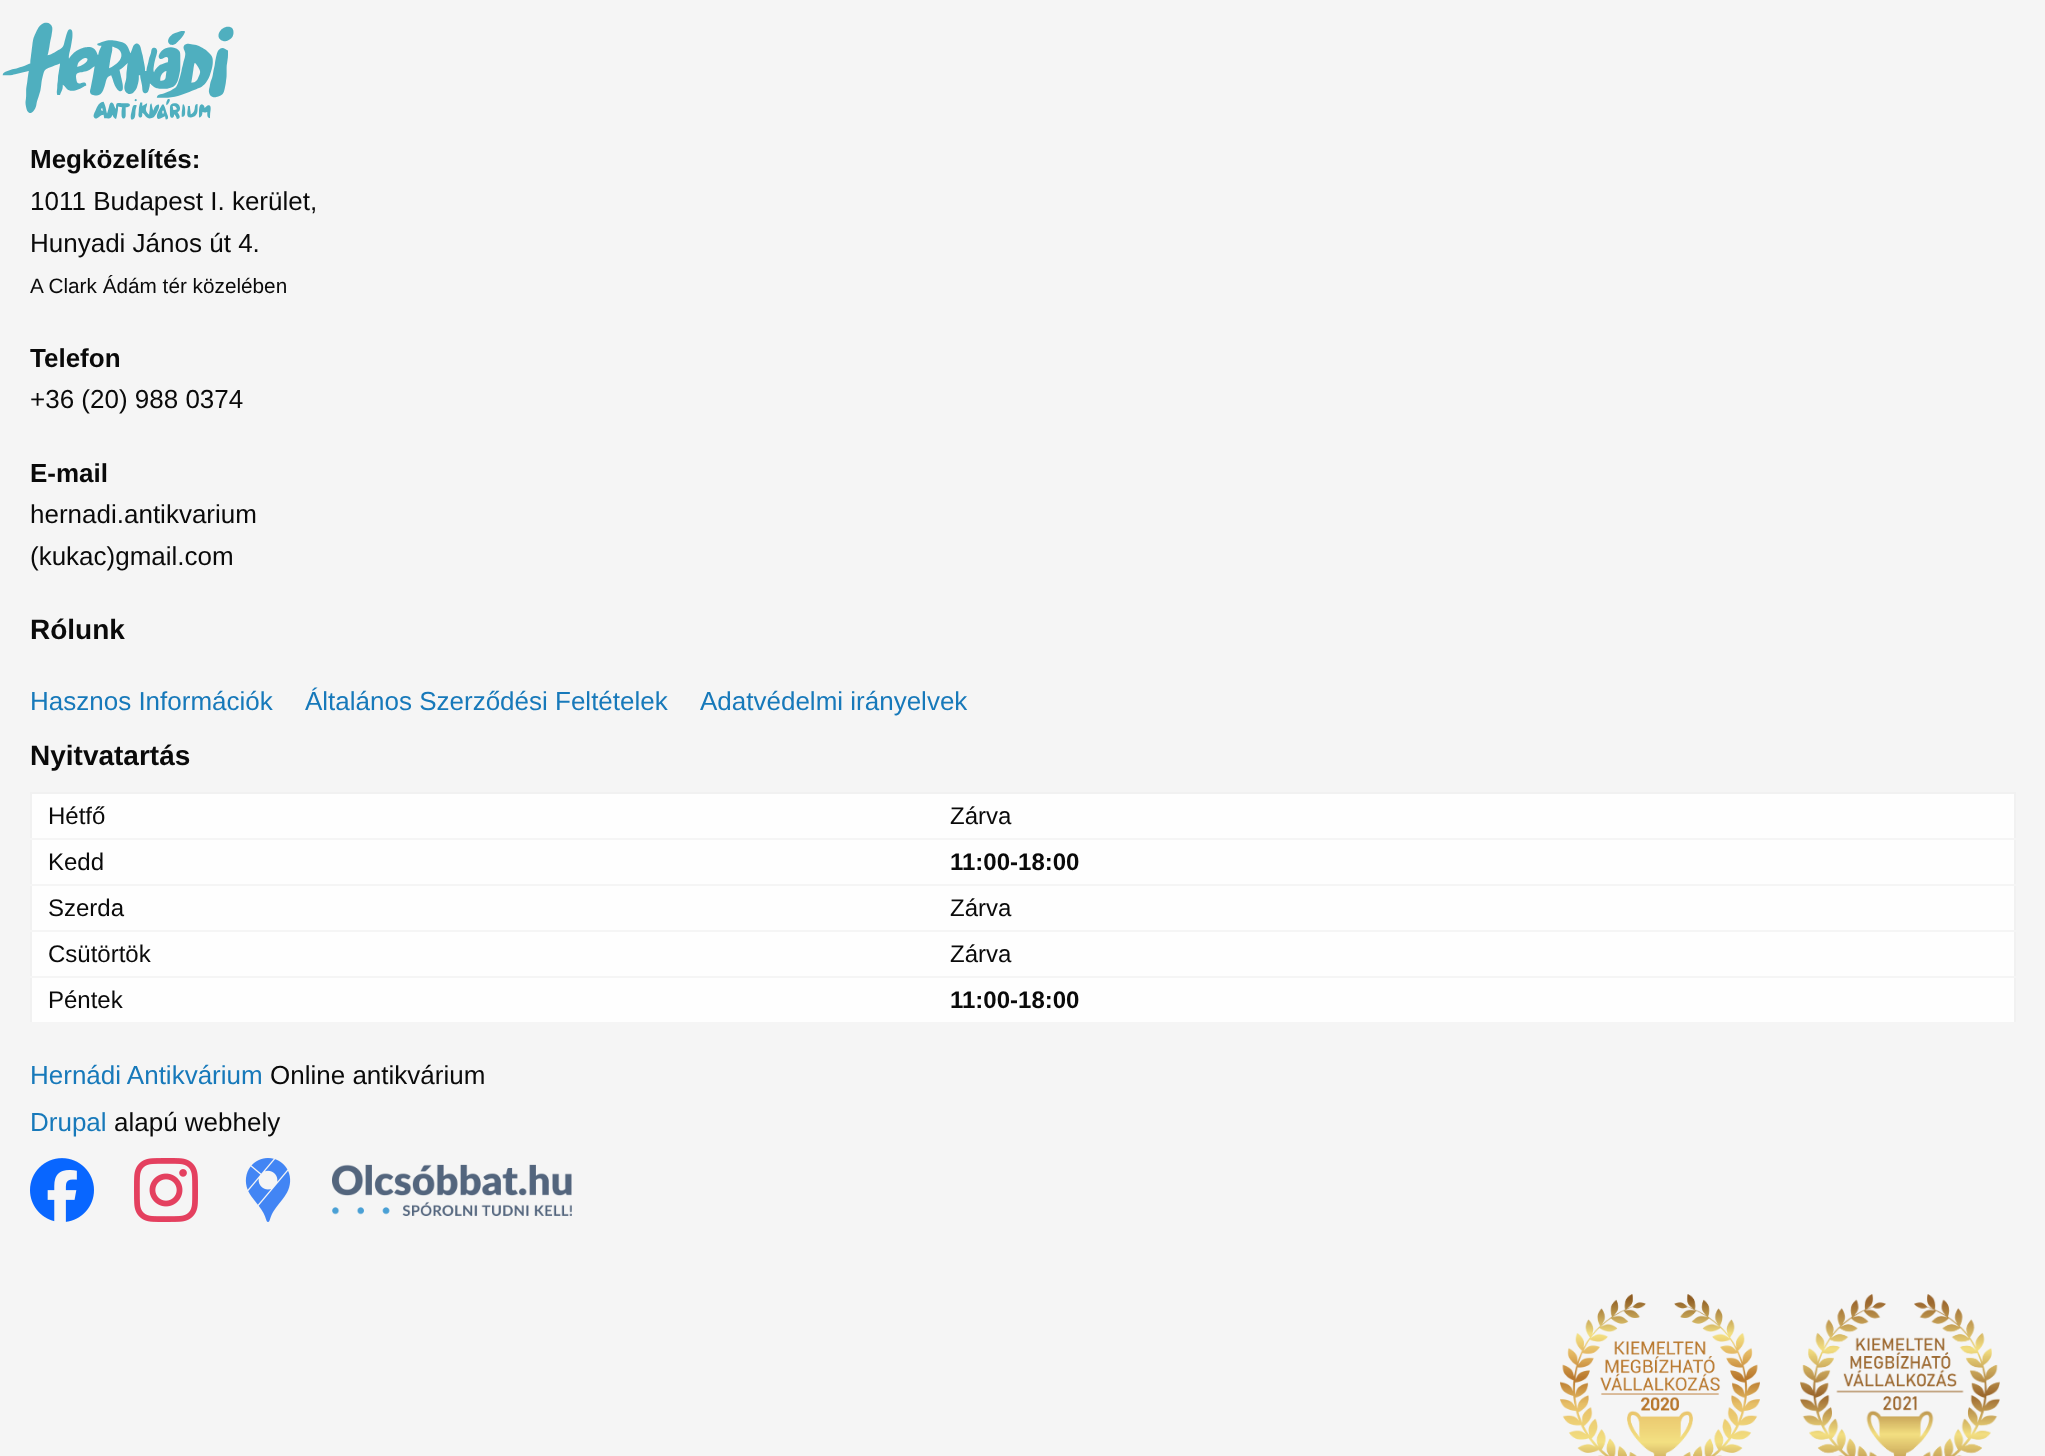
(async () => {
    const canvas = document.querySelector("canvas");
    canvas.width = 2045;
    canvas.height = 1456;
    const context = canvas.getContext("2d");
    context.miterLimit = 4;
    context.fontKerning = "normal";
    function write(s, x, y, font, color) {
        context.font = font;
        context.fillStyle = color;
        context.fillText(s, x, y);
    }
    function block(x, y, w, h, color) {
        context.fillStyle = color;
        context.fillRect(x, y, w, h);
    }
    async function photo(src, x, y, w, h) {
        const img = new Image();
        img.src = src;
        await img.decode();
        context.drawImage(img, x, y, w, h);
    }

    block(0, 0, 2045, 1456, "rgb(245, 245, 245)");
    await photo("media/1.png", 2, 22, 232, 98);
    write("Megközelítés:", 30, 168, "bold 26px Liberation Sans", "rgb(10, 10, 10)");
    write("1011 Budapest I. kerület,", 30, 210, "26px Liberation Sans", "rgb(10, 10, 10)");
    write("Hunyadi János út 4.", 30, 252, "26px Liberation Sans", "rgb(10, 10, 10)");
    write("A Clark Ádám tér közelében", 30, 293, "20.75px Liberation Sans", "rgb(10, 10, 10)");
    write("Telefon", 30, 367, "bold 26px Liberation Sans", "rgb(10, 10, 10)");
    write("+36 (20) 988 0374", 30, 408, "26px Liberation Sans", "rgb(10, 10, 10)");
    write("E-mail", 30, 482, "bold 26px Liberation Sans", "rgb(10, 10, 10)");
    write("hernadi.antikvarium", 30, 523, "26px Liberation Sans", "rgb(10, 10, 10)");
    write("(kukac)gmail.com", 30, 565, "26px Liberation Sans", "rgb(10, 10, 10)");
    write("Rólunk", 30, 639, "bold 28px Liberation Sans", "rgb(10, 10, 10)");
    write("Hasznos Információk", 30, 710, "26px Liberation Sans", "rgb(23, 121, 186)");
    write("Általános Szerződési Feltételek", 305, 710, "26px Liberation Sans", "rgb(23, 121, 186)");
    write("Adatvédelmi irányelvek", 700, 710, "26px Liberation Sans", "rgb(23, 121, 186)");
    write("Nyitvatartás", 30, 765, "bold 28px Liberation Sans", "rgb(10, 10, 10)");
    block(32, 794, 1982, 228, "rgb(254, 254, 254)");
    block(30, 792, 1986, 2, "rgb(241, 241, 241)");
    block(2014, 792, 2, 232, "rgb(241, 241, 241)");
    block(30, 792, 2, 232, "rgb(241, 241, 241)");
    block(30, 838, 1986, 2, "rgb(245, 245, 245)");
    write("Hétfő", 48, 824, "24px Liberation Sans", "rgb(10, 10, 10)");
    write("Zárva", 950, 824, "24px Liberation Sans", "rgb(10, 10, 10)");
    block(30, 884, 1986, 2, "rgb(245, 245, 245)");
    write("Kedd", 48, 870, "24px Liberation Sans", "rgb(10, 10, 10)");
    write("11:00-18:00", 950, 870, "bold 24px Liberation Sans", "rgb(10, 10, 10)");
    block(30, 930, 1986, 2, "rgb(245, 245, 245)");
    write("Szerda", 48, 916, "24px Liberation Sans", "rgb(10, 10, 10)");
    write("Zárva", 950, 916, "24px Liberation Sans", "rgb(10, 10, 10)");
    block(30, 976, 1986, 2, "rgb(245, 245, 245)");
    write("Csütörtök", 48, 962, "24px Liberation Sans", "rgb(10, 10, 10)");
    write("Zárva", 950, 962, "24px Liberation Sans", "rgb(10, 10, 10)");
    block(30, 1022, 1986, 2, "rgb(245, 245, 245)");
    write("Péntek", 48, 1008, "24px Liberation Sans", "rgb(10, 10, 10)");
    write("11:00-18:00", 950, 1008, "bold 24px Liberation Sans", "rgb(10, 10, 10)");
    write("Hernádi Antikvárium", 30, 1084, "26px Liberation Sans", "rgb(23, 121, 186)");
    write("Online antikvárium", 270, 1084, "26px Liberation Sans", "rgb(10, 10, 10)");
    write("Drupal", 30, 1131, "26px Liberation Sans", "rgb(23, 121, 186)");
    write("alapú webhely", 114, 1131, "26px Liberation Sans", "rgb(10, 10, 10)");
    await photo("media/2.png", 30, 1158, 64, 64);
    await photo("media/3.png", 134, 1158, 64, 64);
    await photo("media/4.png", 245, 1158, 46, 64);
    await photo("media/5.png", 332, 1164, 240, 52);
    await photo("media/6.png", 1560, 1294, 200, 162);
    await photo("media/7.png", 1800, 1294, 200, 162);
})();
